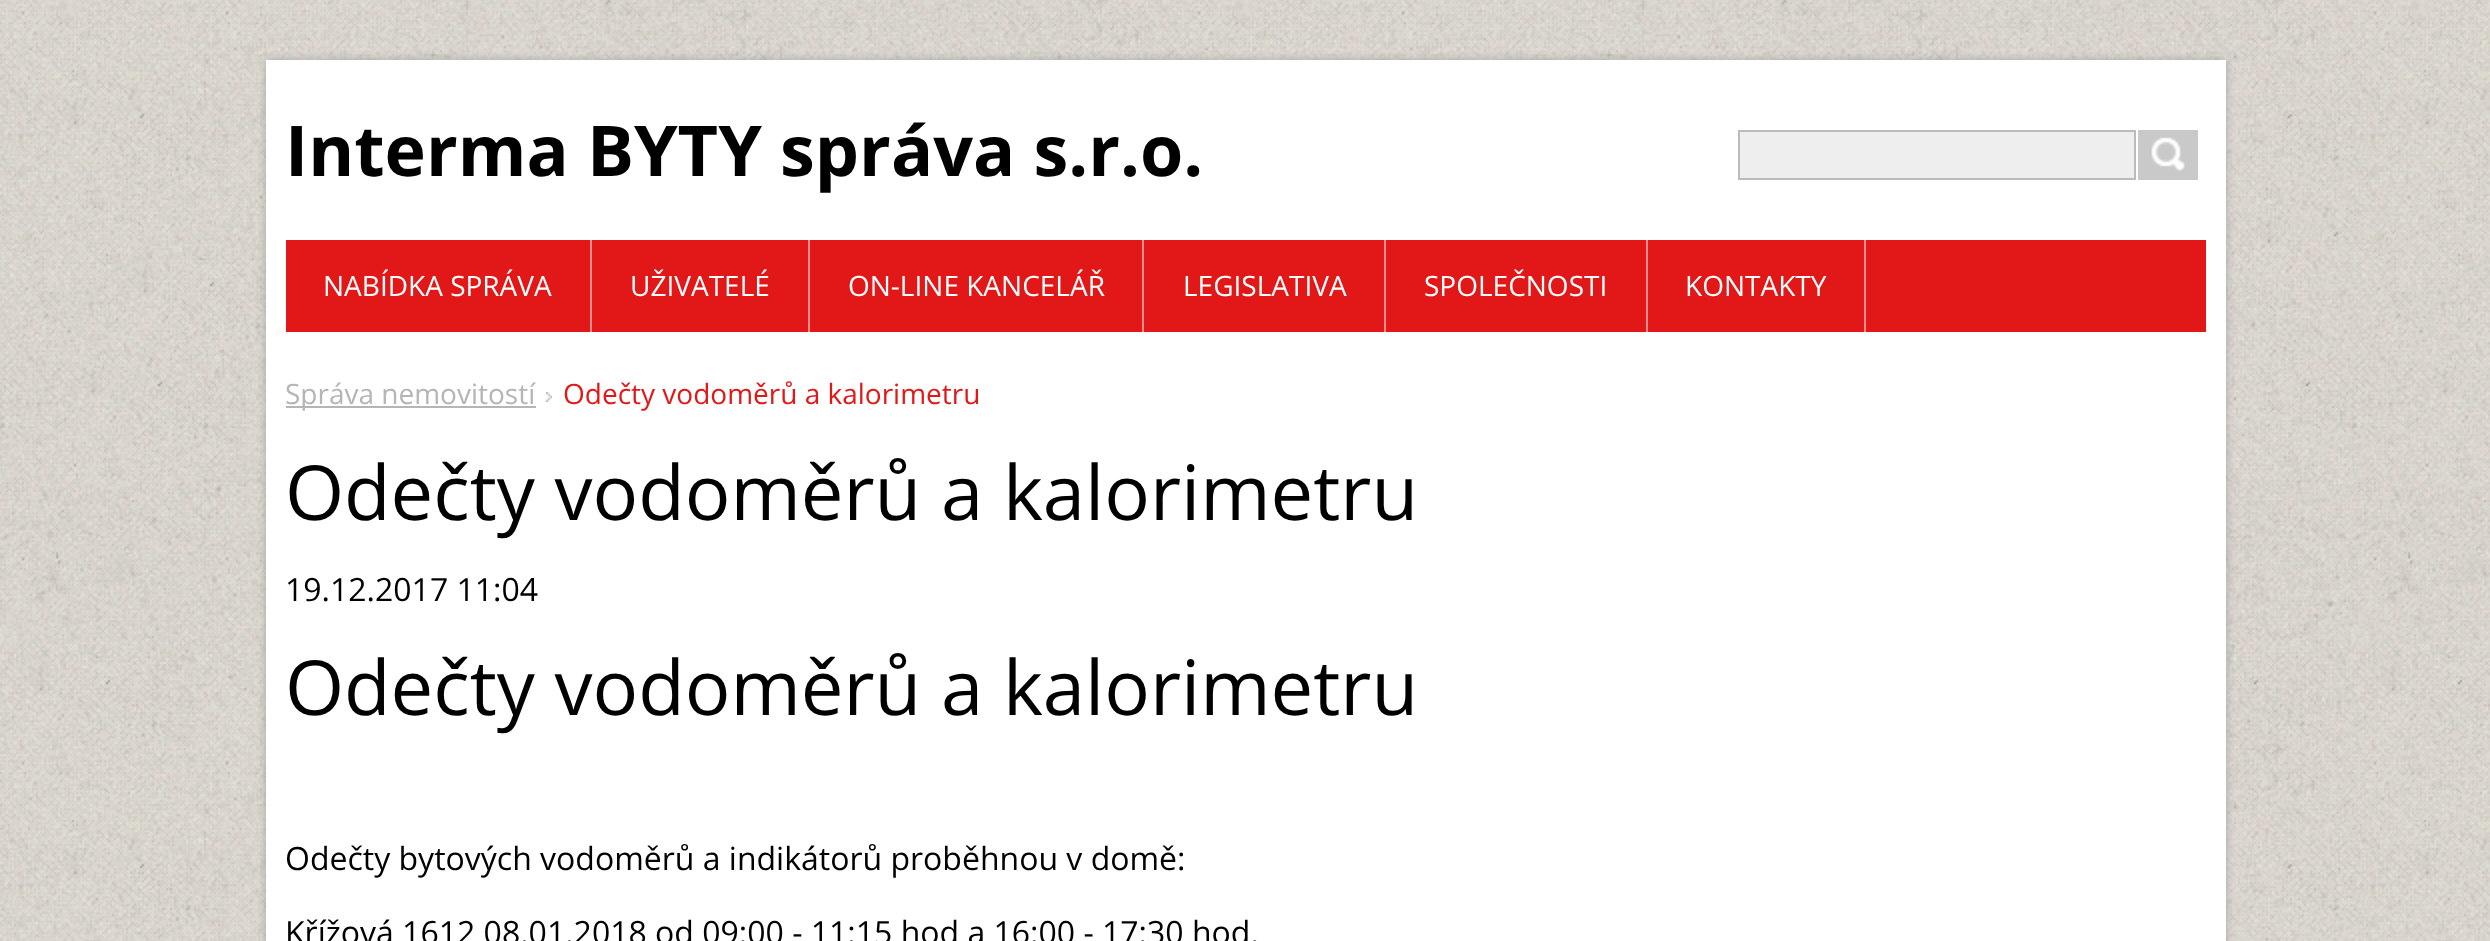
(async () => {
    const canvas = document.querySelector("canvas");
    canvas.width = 2490;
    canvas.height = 941;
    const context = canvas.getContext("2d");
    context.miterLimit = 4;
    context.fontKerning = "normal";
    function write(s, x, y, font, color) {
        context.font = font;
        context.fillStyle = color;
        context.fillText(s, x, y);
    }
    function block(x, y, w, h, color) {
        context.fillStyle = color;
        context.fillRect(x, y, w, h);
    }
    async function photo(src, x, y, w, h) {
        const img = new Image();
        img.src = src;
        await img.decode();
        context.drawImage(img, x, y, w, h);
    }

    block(0, 0, 2490, 941, "rgb(255, 255, 255)");
    await photo("media/1.png", 0, 0, 2490, 941);
    context.fillStyle = "rgba(152, 152, 152, 0.75)";
    context.filter = "blur(4px)";
    context.beginPath();
    context.rect(266, 60, 1960, 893);
    context.fill();
    context.filter = "none";
    block(266, 60, 1960, 881, "rgb(255, 255, 255)");
    write("Interma BYTY správa s.r.o.", 285, 176, "bold 70px Open Sans", "rgb(0, 0, 0)");
    context.fillStyle = "rgb(238, 238, 238)";
    context.beginPath();
    context.rect(1739, 131, 396, 48);
    context.fill();
    context.strokeStyle = "rgb(187, 187, 187)";
    context.lineWidth = 2;
    context.stroke();
    block(2138, 130, 60, 50, "rgb(201, 201, 201)");
    await photo("media/2.png", 2151, 137, 34, 34);
    block(286, 240, 1920, 92, "rgb(226, 24, 24)");
    block(590, 240, 2, 92, "rgb(241, 140, 140)");
    write("NABÍDKA SPRÁVA", 323, 296, "28px Open Sans", "rgb(255, 255, 255)");
    block(808, 240, 2, 92, "rgb(241, 140, 140)");
    write("UŽIVATELÉ", 630, 296, "28px Open Sans", "rgb(255, 255, 255)");
    block(1142, 240, 2, 92, "rgb(241, 140, 140)");
    write("ON-LINE KANCELÁŘ", 848, 296, "28px Open Sans", "rgb(255, 255, 255)");
    block(1384, 240, 2, 92, "rgb(241, 140, 140)");
    write("LEGISLATIVA", 1183, 296, "28px Open Sans", "rgb(255, 255, 255)");
    block(1646, 240, 2, 92, "rgb(241, 140, 140)");
    write("SPOLEČNOSTI", 1424, 296, "28px Open Sans", "rgb(255, 255, 255)");
    block(1864, 240, 2, 92, "rgb(241, 140, 140)");
    write("KONTAKTY", 1685, 296, "28px Open Sans", "rgb(255, 255, 255)");
    block(286, 406, 250, 2, "rgb(181, 181, 181)");
    write("Správa nemovitostí", 285, 404, "28px Open Sans", "rgb(181, 181, 181)");
    await photo("media/3.png", 546, 392, 6, 10);
    write("Odečty vodoměrů a kalorimetru", 563, 404, "28px Open Sans", "rgb(226, 24, 24)");
    write("Odečty vodoměrů a kalorimetru", 285, 520, "76px Open Sans", "rgb(0, 0, 0)");
    write("19.12.2017 11:04", 285, 601, "32px Open Sans", "rgb(0, 0, 0)");
    write("Odečty vodoměrů a kalorimetru", 285, 715, "76px Open Sans", "rgb(0, 0, 0)");
    write("Odečty bytových vodoměrů a indikátorů proběhnou v domě:", 285, 870, "32px Open Sans", "rgb(0, 0, 0)");
    write("Křížová 1612 08.01.2018 od 09:00 - 11:15 hod a 16:00 - 17:30 hod.", 285, 944, "32px Open Sans", "rgb(0, 0, 0)");
})();
